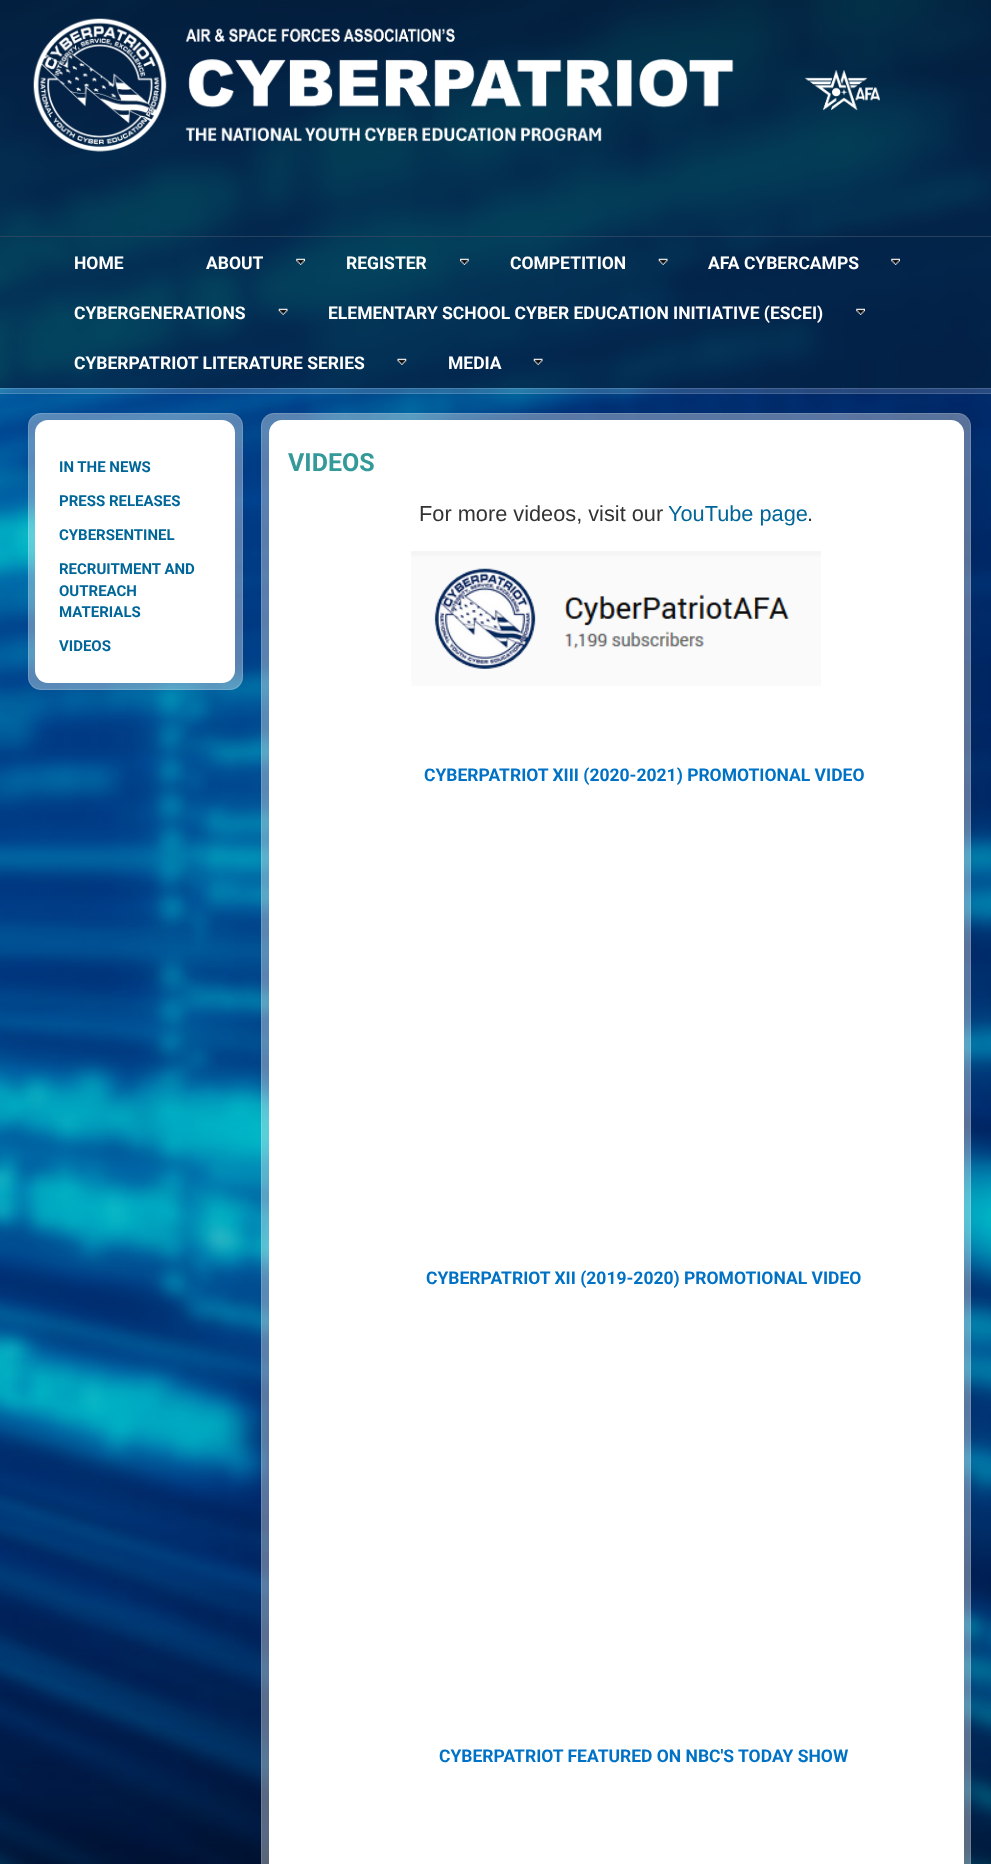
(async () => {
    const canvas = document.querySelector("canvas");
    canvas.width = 991;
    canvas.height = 1864;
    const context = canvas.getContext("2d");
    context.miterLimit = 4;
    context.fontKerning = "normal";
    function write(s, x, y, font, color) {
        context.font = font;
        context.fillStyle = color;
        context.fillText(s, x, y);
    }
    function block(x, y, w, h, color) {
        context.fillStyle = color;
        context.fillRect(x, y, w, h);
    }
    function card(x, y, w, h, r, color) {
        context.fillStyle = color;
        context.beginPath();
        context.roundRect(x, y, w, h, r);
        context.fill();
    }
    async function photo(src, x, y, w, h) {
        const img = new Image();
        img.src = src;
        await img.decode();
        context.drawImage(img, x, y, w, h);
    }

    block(0, 0, 991, 1864, "rgb(255, 255, 255)");
    await photo("media/1.png", 0, 0, 991, 1864);
    block(0, 0, 991, 237, "rgba(4, 32, 61, 0.75)");
    await photo("media/2.png", 33, 18, 701, 134);
    await photo("media/3.png", 805, 70, 75, 41);
    block(0, 236, 991, 152, "rgba(4, 32, 61, 0.75)");
    block(0, 236, 991, 1, "rgba(255, 255, 255, 0.15)");
    write("HOME", 74, 269, "bold 17.5px Roboto", "rgb(255, 255, 255)");
    await photo("media/4.png", 296, 258, 9, 7);
    write("ABOUT", 206, 269, "bold 17.5px Roboto", "rgb(255, 255, 255)");
    await photo("media/5.png", 460, 258, 9, 7);
    write("REGISTER", 346, 269, "bold 17.5px Roboto", "rgb(255, 255, 255)");
    await photo("media/6.png", 658, 258, 10, 7);
    write("COMPETITION", 510, 269, "bold 17.5px Roboto", "rgb(255, 255, 255)");
    await photo("media/7.png", 891, 258, 9, 7);
    write("AFA CYBERCAMPS", 708, 269, "bold 17.5px Roboto", "rgb(255, 255, 255)");
    await photo("media/8.png", 278, 308, 10, 7);
    write("CYBERGENERATIONS", 74, 319, "bold 17.5px Roboto", "rgb(255, 255, 255)");
    await photo("media/9.png", 856, 308, 9, 7);
    write("ELEMENTARY SCHOOL CYBER EDUCATION INITIATIVE (ESCEI)", 328, 319, "bold 17.5px Roboto", "rgb(255, 255, 255)");
    await photo("media/10.png", 397, 358, 10, 7);
    write("CYBERPATRIOT LITERATURE SERIES", 74, 369, "bold 17.5px Roboto", "rgb(255, 255, 255)");
    await photo("media/11.png", 533, 358, 10, 7);
    write("MEDIA", 448, 369, "bold 17.5px Roboto", "rgb(255, 255, 255)");
    block(0, 388, 991, 6, "rgba(255, 255, 255, 0.15)");
    block(0, 388, 991, 1, "rgba(255, 255, 255, 0.15)");
    block(0, 393, 991, 1, "rgba(255, 255, 255, 0.15)");
    card(28, 413, 215, 277, 13, "rgba(255, 255, 255, 0.35)");
    context.beginPath();
    context.roundRect(28.5, 413.5, 214, 276, 12.5);
    context.strokeStyle = "rgba(255, 255, 255, 0.15)";
    context.stroke();
    card(35, 420, 200, 263, 13, "rgb(255, 255, 255)");
    write("IN THE NEWS", 59, 472, "bold 15px Roboto", "rgb(0, 102, 153)");
    write("PRESS RELEASES", 59, 506, "bold 15px Roboto", "rgb(0, 102, 153)");
    write("CYBERSENTINEL", 59, 540, "bold 15px Roboto", "rgb(0, 102, 153)");
    write("RECRUITMENT AND", 59, 574, "bold 15px Roboto", "rgb(0, 102, 153)");
    write("OUTREACH", 59, 596, "bold 15px Roboto", "rgb(0, 102, 153)");
    write("MATERIALS", 59, 617, "bold 15px Roboto", "rgb(0, 102, 153)");
    write("VIDEOS", 59, 651, "bold 15px Roboto", "rgb(0, 102, 153)");
    context.fillStyle = "rgba(255, 255, 255, 0.35)";
    context.beginPath();
    context.moveTo(274, 413);
    context.lineTo(958, 413);
    context.bezierCurveTo(965, 413, 971, 419, 971, 426);
    context.lineTo(971, 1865);
    context.lineTo(261, 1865);
    context.lineTo(261, 426);
    context.bezierCurveTo(261, 419, 267, 413, 274, 413);
    context.closePath();
    context.fill();
    context.beginPath();
    context.roundRect(261.5, 413.5, 709, 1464, 12.5);
    context.stroke();
    context.fillStyle = "rgb(255, 255, 255)";
    context.beginPath();
    context.moveTo(282, 420);
    context.lineTo(951, 420);
    context.bezierCurveTo(958, 420, 964, 426, 964, 433);
    context.lineTo(964, 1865);
    context.lineTo(269, 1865);
    context.lineTo(269, 433);
    context.bezierCurveTo(269, 426, 275, 420, 282, 420);
    context.closePath();
    context.fill();
    write("VIDEOS", 288, 471, "bold 25px Roboto", "rgb(51, 153, 153)");
    write("For more videos, visit our", 419, 521, "21.75px Liberation Sans", "rgb(51, 51, 51)");
    write("YouTube page", 668, 521, "21.75px Liberation Sans", "rgb(0, 102, 153)");
    write(".", 807, 521, "21.75px Liberation Sans", "rgb(51, 51, 51)");
    await photo("media/12.png", 411, 551, 410, 135);
    write("CYBERPATRIOT XIII (2020-2021) PROMOTIONAL VIDEO", 424, 781, "bold 17.5px Roboto", "rgb(0, 114, 198)");
    write("CYBERPATRIOT XII (2019-2020) PROMOTIONAL VIDEO", 426, 1284, "bold 17.5px Roboto", "rgb(0, 114, 198)");
    write("CYBERPATRIOT FEATURED ON NBC'S TODAY SHOW", 439, 1762, "bold 17.5px Roboto", "rgb(0, 114, 198)");
})();
